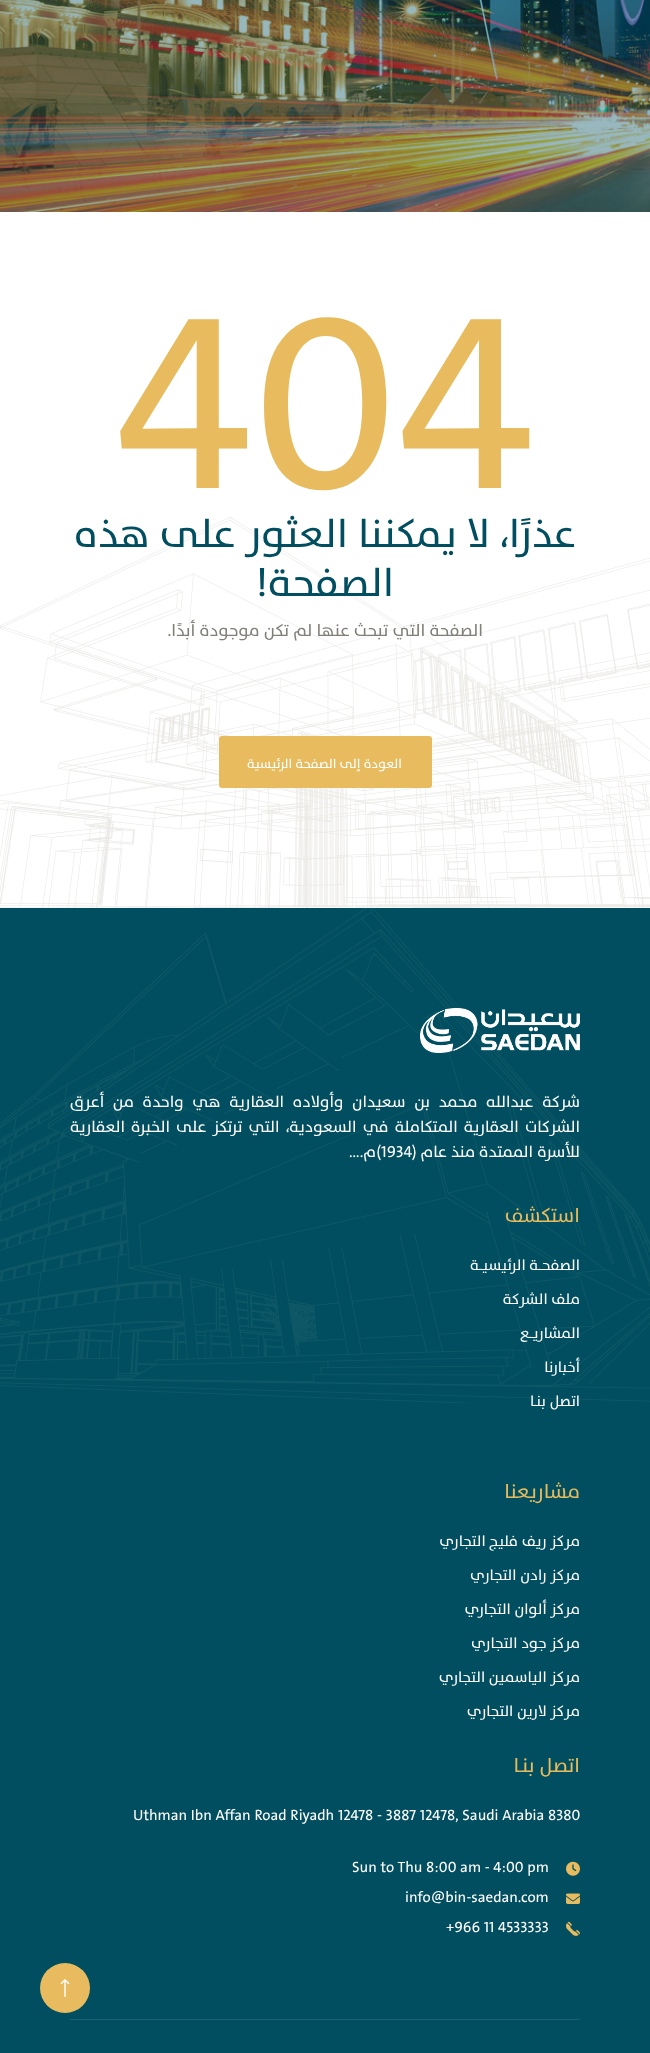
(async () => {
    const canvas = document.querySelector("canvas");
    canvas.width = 650;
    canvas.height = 2053;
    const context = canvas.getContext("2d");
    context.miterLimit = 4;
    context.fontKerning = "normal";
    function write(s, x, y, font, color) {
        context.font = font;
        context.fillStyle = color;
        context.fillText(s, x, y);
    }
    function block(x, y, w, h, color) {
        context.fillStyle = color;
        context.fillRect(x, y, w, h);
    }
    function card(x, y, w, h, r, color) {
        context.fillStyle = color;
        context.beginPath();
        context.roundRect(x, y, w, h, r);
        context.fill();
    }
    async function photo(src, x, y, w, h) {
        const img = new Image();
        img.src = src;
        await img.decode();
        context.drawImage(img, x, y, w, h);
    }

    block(0, 0, 650, 2053, "rgb(255, 255, 255)");
    await photo("media/1.png", 0, 0, 650, 212);
    write("404", 116, 488, "250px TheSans", "rgb(231, 187, 94)");
    await photo("media/2.png", 0, 517, 650, 391);
    context.direction = "rtl";
    write("عذرًا، لا يمكننا العثور على هذه", 576, 547, "40px TheSans", "rgb(0, 78, 95)");
    write("الصفحة!", 394, 596, "40px TheSans", "rgb(0, 78, 95)");
    write("الصفحة التي تبحث عنها لم تكن موجودة أبدًا.", 483, 636, "17px TheSans", "rgb(130, 126, 120)");
    card(219, 736, 213, 52, 3, "rgb(231, 187, 94)");
    write("العودة إلى الصفحة الرئيسية", 402, 768, "13px TheSans", "rgb(255, 255, 255)");
    block(0, 908, 650, 1145, "rgb(0, 78, 95)");
    await photo("media/3.png", 0, 908, 650, 495);
    await photo("media/4.png", 420, 1008, 160, 45);
    context.wordSpacing = "4.75px";
    write("شركة عبدالله محمد بن سعيدان وأولاده العقارية هي واحدة من أعرق", 580, 1107, "16px TheSans", "rgb(255, 255, 255)");
    context.wordSpacing = "2.25px";
    write("الشركات العقارية المتكاملة في السعودية، التي ترتكز على الخبرة العقارية", 580, 1132, "16px TheSans", "rgb(255, 255, 255)");
    context.wordSpacing = "0px";
    write("للأسرة", 580, 1157, "16px TheSans", "rgb(255, 255, 255)");
    write("الممتدة منذ عام (", 533, 1157, "16px TheSans", "rgb(255, 255, 255)");
    context.direction = "ltr";
    write("1934", 381, 1157, "16px TheSans", "rgb(255, 255, 255)");
    context.direction = "rtl";
    write(")م.…", 381, 1157, "16px TheSans", "rgb(255, 255, 255)");
    write("استكشف", 580, 1222, "20px TheSans", "rgb(231, 187, 94)");
    write("الصفحــة الرئيسيــة", 580, 1270, "15px TheSans", "rgb(255, 255, 255)");
    write("ملف الشركة", 580, 1304, "15px TheSans", "rgb(255, 255, 255)");
    write("المشاريــع", 580, 1338, "15px TheSans", "rgb(255, 255, 255)");
    write("أخبارنا", 580, 1372, "15px TheSans", "rgb(255, 255, 255)");
    write("اتصل بنـا", 580, 1406, "15px TheSans", "rgb(255, 255, 255)");
    write("مشاريعنا", 580, 1498, "20px TheSans", "rgb(231, 187, 94)");
    write("مركز ريف فليج التجاري", 580, 1546, "15px TheSans", "rgb(255, 255, 255)");
    write("مركز رادن التجاري", 580, 1580, "15px TheSans", "rgb(255, 255, 255)");
    write("مركز ألوان التجاري", 580, 1614, "15px TheSans", "rgb(255, 255, 255)");
    write("مركز جود التجاري", 580, 1648, "15px TheSans", "rgb(255, 255, 255)");
    write("مركز الياسمين التجاري", 580, 1682, "15px TheSans", "rgb(255, 255, 255)");
    write("مركز لارين التجاري", 580, 1716, "15px TheSans", "rgb(255, 255, 255)");
    write("اتصل بنـا", 580, 1772, "20px TheSans", "rgb(231, 187, 94)");
    context.direction = "ltr";
    write("Uthman Ibn Affan Road Riyadh 12478 - 3887 12478, Saudi Arabia 8380", 133, 1820, "15px TheSans", "rgb(255, 255, 255)");
    await photo("media/5.png", 566, 1861, 14, 15);
    write("Sun to Thu 8:00 am - 4:00 pm", 352, 1872, "15px TheSans", "rgb(255, 255, 255)");
    await photo("media/6.png", 566, 1893, 14, 11);
    write("info@bin-saedan.com", 405, 1902, "15px TheSans", "rgb(255, 255, 255)");
    await photo("media/7.png", 566, 1921, 14, 15);
    write("+966 11 4533333", 446, 1932, "15px TheSans", "rgb(255, 255, 255)");
    block(70, 2019, 510, 1, "rgb(26, 96, 111)");
    context.fillStyle = "rgb(231, 187, 94)";
    context.beginPath();
    context.arc(65, 1988, 25, 0, Math.PI * 2);
    context.fill();
    await photo("media/8.png", 60, 1979, 10, 18);
})();
